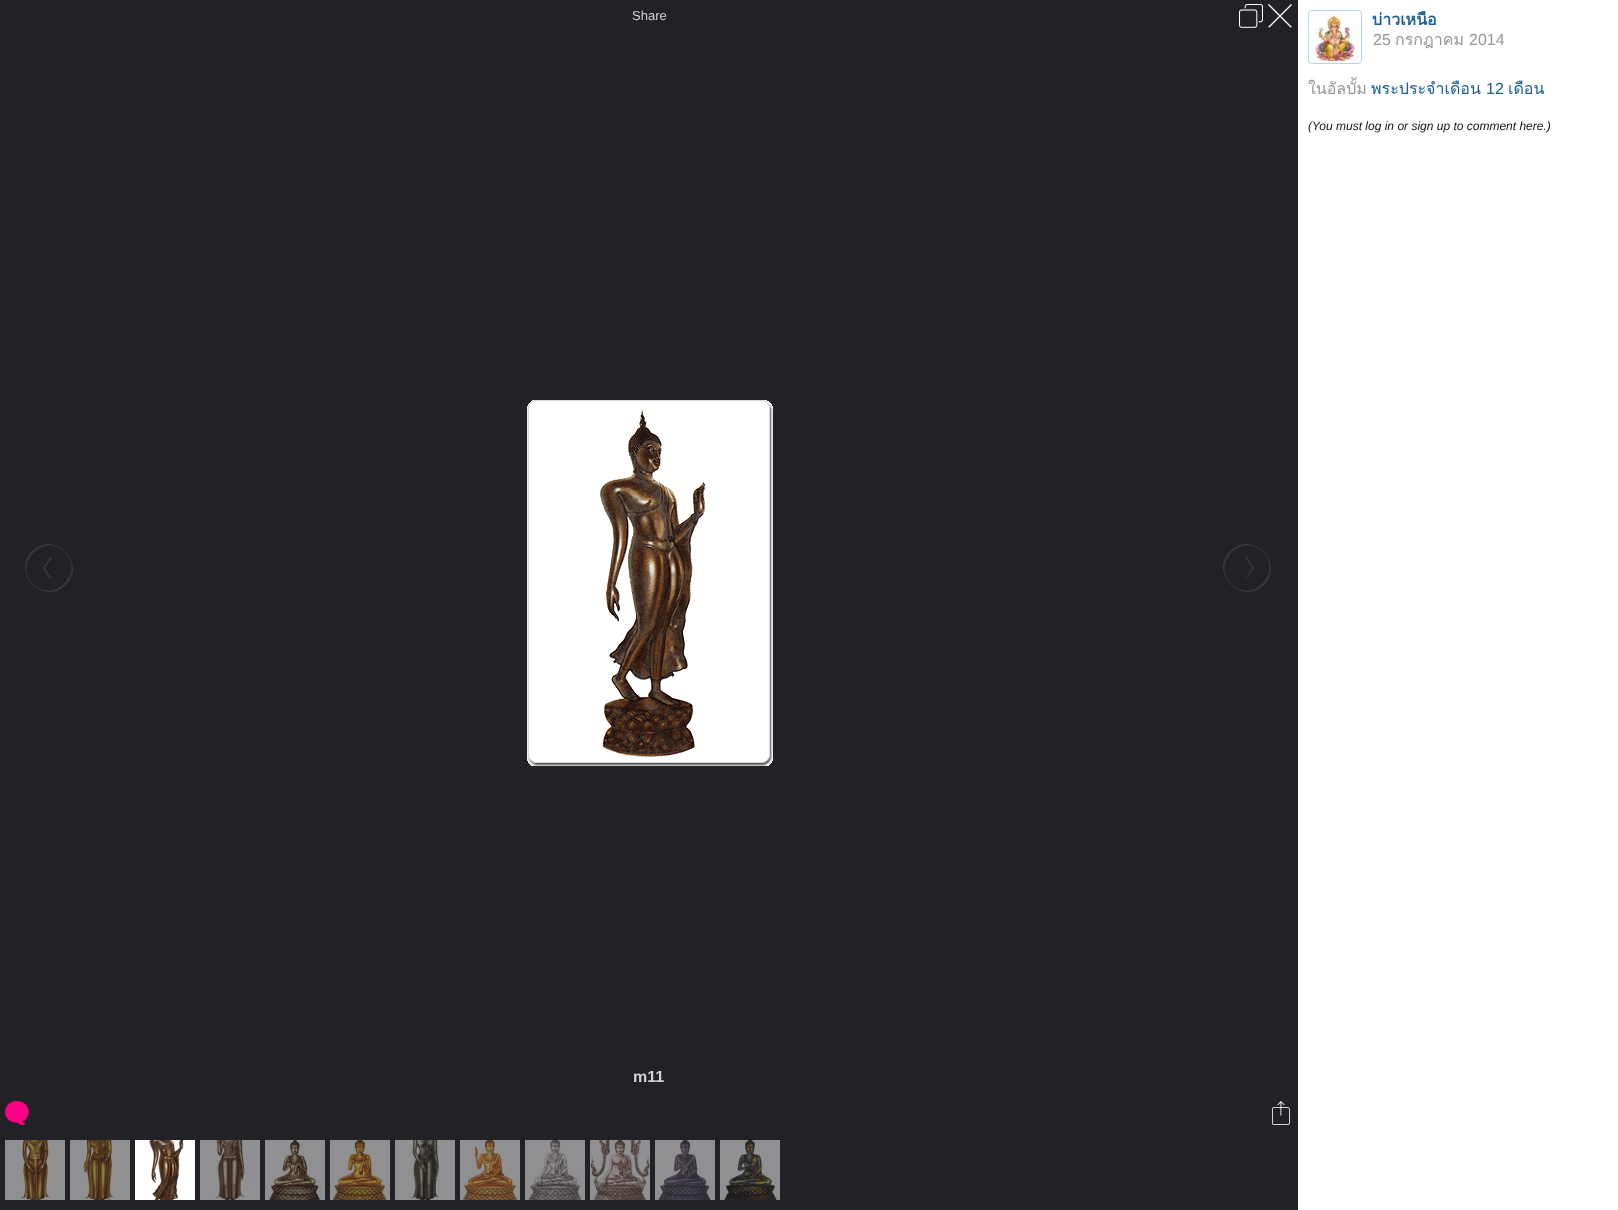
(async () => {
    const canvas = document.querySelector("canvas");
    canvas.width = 1618;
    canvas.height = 1210;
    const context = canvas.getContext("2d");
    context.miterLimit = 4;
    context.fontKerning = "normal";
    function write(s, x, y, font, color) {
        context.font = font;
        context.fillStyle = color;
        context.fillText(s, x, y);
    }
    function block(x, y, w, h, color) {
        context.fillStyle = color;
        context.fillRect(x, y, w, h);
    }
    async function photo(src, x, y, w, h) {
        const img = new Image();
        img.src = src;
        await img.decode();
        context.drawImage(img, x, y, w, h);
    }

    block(0, 0, 1618, 1210, "rgb(33, 33, 38)");
    await photo("media/1.png", 1239, 4, 24, 24);
    await photo("media/2.png", 1268, 4, 24, 24);
    write("Share", 632, 20, "13px Liberation Sans", "rgb(211, 211, 212)");
    context.fillStyle = "rgb(55, 55, 60)";
    context.beginPath();
    context.moveTo(32, 551);
    context.bezierCurveTo(54, 529, 88, 563, 66, 585);
    context.bezierCurveTo(44, 607, 10, 573, 32, 551);
    context.closePath();
    context.moveTo(33, 584);
    context.bezierCurveTo(54, 604, 85, 573, 65, 552);
    context.bezierCurveTo(44, 532, 13, 563, 33, 584);
    context.closePath();
    context.moveTo(51, 557);
    context.bezierCurveTo(53, 558, 46, 566, 45, 568);
    context.lineTo(50, 576);
    context.bezierCurveTo(53, 580, 50, 579, 50, 579);
    context.lineTo(45, 572);
    context.bezierCurveTo(43, 568, 42, 569, 44, 566);
    context.lineTo(48, 561);
    context.bezierCurveTo(48, 560, 50, 556, 51, 557);
    context.closePath();
    context.fill();
    await photo("media/3.png", 527, 400, 246, 366);
    context.beginPath();
    context.moveTo(1230, 551);
    context.bezierCurveTo(1252, 529, 1286, 563, 1264, 585);
    context.bezierCurveTo(1242, 607, 1208, 573, 1230, 551);
    context.closePath();
    context.moveTo(1231, 584);
    context.bezierCurveTo(1252, 604, 1283, 573, 1263, 552);
    context.bezierCurveTo(1242, 532, 1211, 563, 1231, 584);
    context.closePath();
    context.moveTo(1247, 557);
    context.lineTo(1254, 568);
    context.lineTo(1246, 579);
    context.lineTo(1245, 579);
    context.lineTo(1252, 568);
    context.lineTo(1245, 557);
    context.bezierCurveTo(1245, 557, 1246, 556, 1247, 557);
    context.closePath();
    context.fill();
    write("m11", 633, 1082, "bold 16px Liberation Sans", "rgb(211, 211, 212)");
    await photo("media/4.png", 5, 1101, 24, 24);
    await photo("media/5.png", 1272, 1101, 18, 24);
    await photo("media/6.png", 5, 1140, 60, 60);
    await photo("media/7.png", 70, 1140, 60, 60);
    await photo("media/8.png", 135, 1140, 60, 60);
    await photo("media/9.png", 200, 1140, 60, 60);
    await photo("media/10.png", 265, 1140, 60, 60);
    await photo("media/11.png", 330, 1140, 60, 60);
    await photo("media/12.png", 395, 1140, 60, 60);
    await photo("media/13.png", 460, 1140, 60, 60);
    await photo("media/14.png", 525, 1140, 60, 60);
    await photo("media/15.png", 590, 1140, 60, 60);
    await photo("media/16.png", 655, 1140, 60, 60);
    await photo("media/17.png", 720, 1140, 60, 60);
    block(1298, 0, 320, 1210, "rgb(255, 255, 255)");
    await photo("media/18.png", 1311, 13, 48, 48);
    context.beginPath();
    context.roundRect(1308.5, 10.5, 53, 53, 3.5);
    context.strokeStyle = "rgb(180, 213, 236)";
    context.stroke();
    write("บ่าวเหนือ", 1372, 25, "bold 16px Loma", "rgb(23, 96, 147)");
    write("25", 1373, 45, "16px Liberation Sans", "rgb(150, 150, 150)");
    write("กรกฎาคม", 1395, 45, "16px Loma", "rgb(150, 150, 150)");
    write("2014", 1469, 45, "16px Liberation Sans", "rgb(150, 150, 150)");
    write("ในอัลบั้ม", 1308, 94, "16px Loma", "rgb(150, 150, 150)");
    write("พระประจำเดือน", 1371, 94, "16px Loma", "rgb(23, 96, 147)");
    write("12", 1486, 94, "16px Liberation Sans", "rgb(23, 96, 147)");
    write("เดือน", 1508, 94, "16px Loma", "rgb(23, 96, 147)");
    write("(You must log in or sign up to comment here.)", 1308, 130, "italic 12px Liberation Sans", "rgb(20, 20, 20)");
})();
